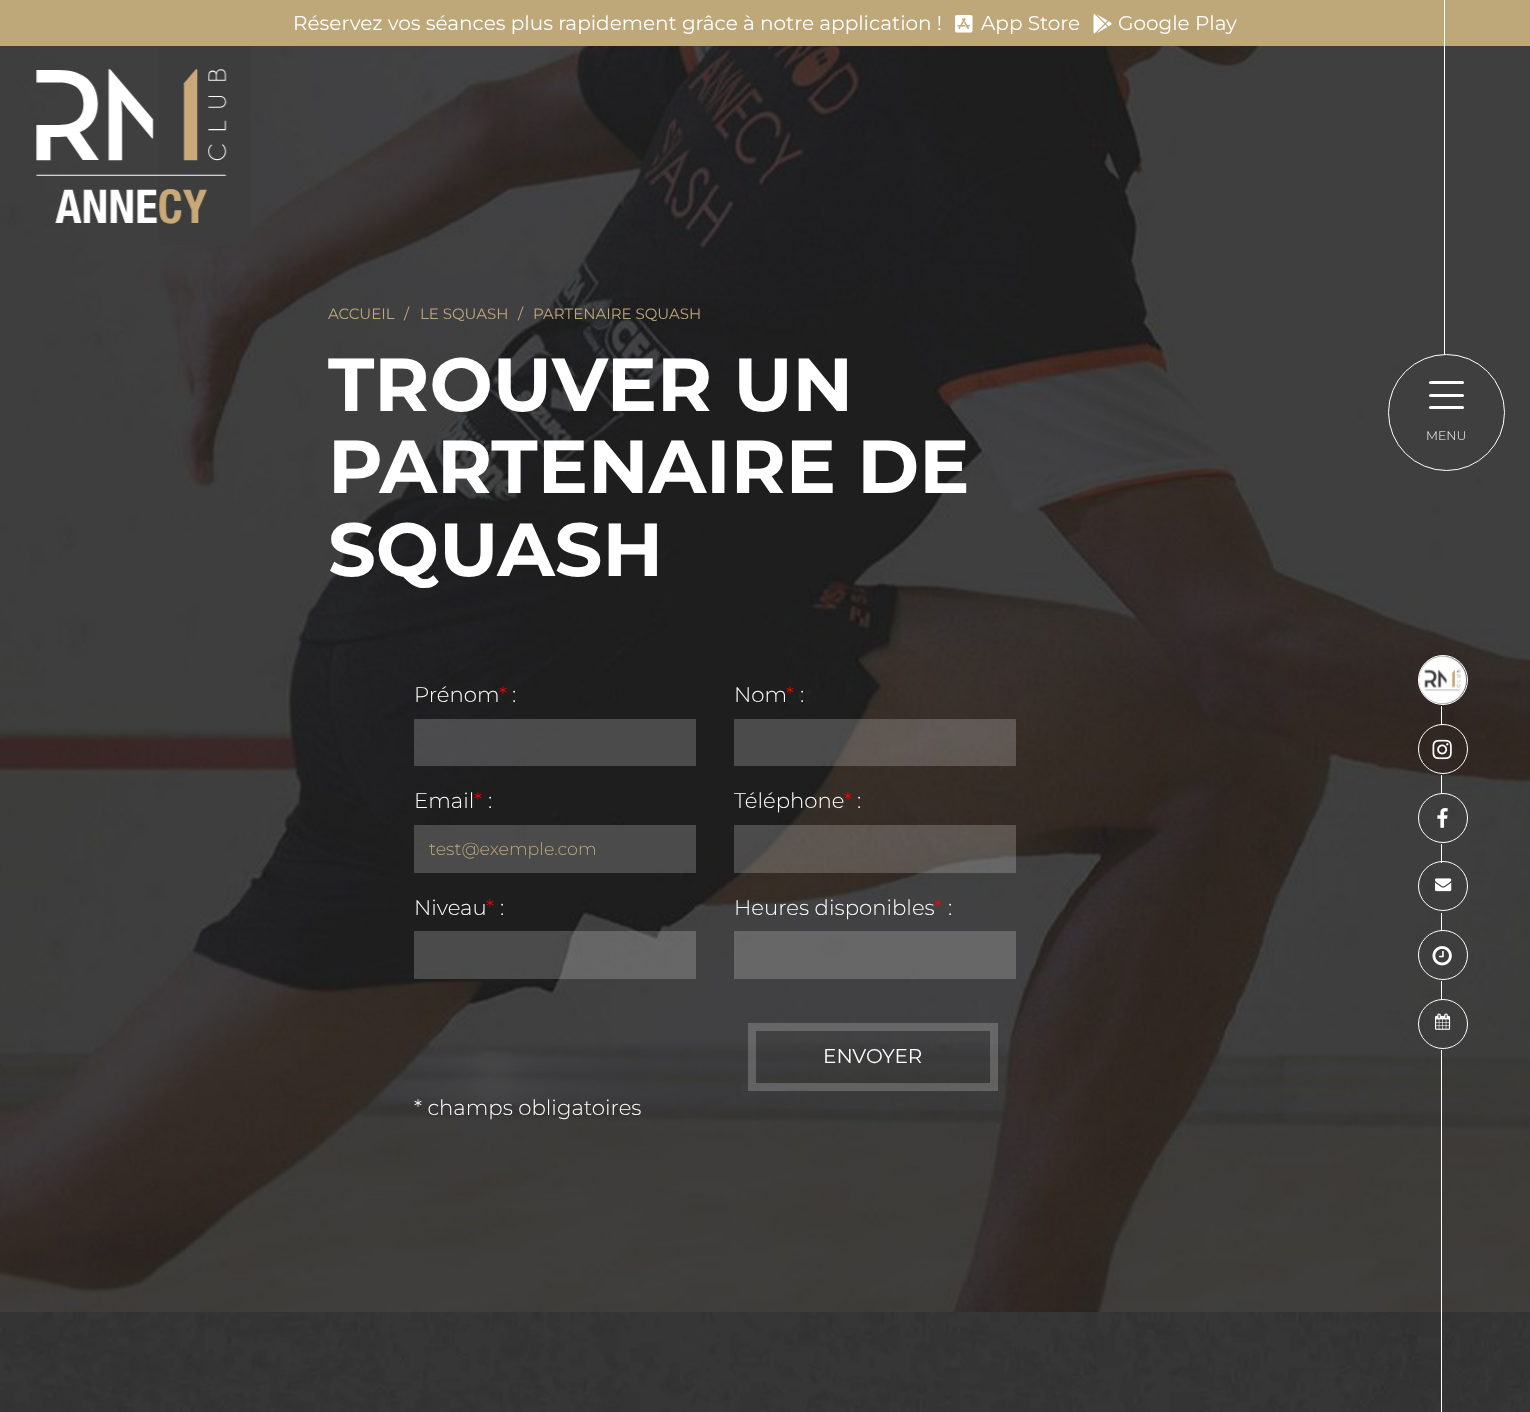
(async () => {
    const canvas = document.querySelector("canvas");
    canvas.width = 1530;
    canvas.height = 1412;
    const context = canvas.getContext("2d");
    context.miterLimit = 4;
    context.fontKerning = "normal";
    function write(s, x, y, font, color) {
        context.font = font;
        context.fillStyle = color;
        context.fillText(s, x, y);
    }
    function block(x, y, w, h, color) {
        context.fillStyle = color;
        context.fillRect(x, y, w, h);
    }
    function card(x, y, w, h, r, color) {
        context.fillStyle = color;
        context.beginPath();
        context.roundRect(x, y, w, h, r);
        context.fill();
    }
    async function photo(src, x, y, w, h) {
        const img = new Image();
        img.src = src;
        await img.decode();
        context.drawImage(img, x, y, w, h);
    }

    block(0, 0, 1530, 1412, "rgb(255, 255, 255)");
    block(0, 0, 1530, 46, "rgb(190, 167, 121)");
    write("Réservez vos séances plus rapidement grâce à notre application !", 293, 30, "20px Montserrat", "rgb(255, 255, 255)");
    await photo("media/1.png", 955, 15, 18, 18);
    write("App Store", 981, 30, "20px Montserrat", "rgb(255, 255, 255)");
    await photo("media/2.png", 1093, 14, 19, 20);
    write("Google Play", 1118, 30, "20px Montserrat", "rgb(255, 255, 255)");
    await photo("media/3.png", 0, 46, 1530, 1266);
    write("ACCUEIL", 328, 319, "15px Montserrat", "rgb(190, 167, 121)");
    write("/", 404, 319, "15px Montserrat", "rgb(190, 167, 121)");
    write("LE SQUASH", 420, 319, "15px Montserrat", "rgb(190, 167, 121)");
    write("/", 518, 319, "15px Montserrat", "rgb(190, 167, 121)");
    write("PARTENAIRE SQUASH", 533, 319, "15px Montserrat", "rgb(190, 167, 121)");
    write("TROUVER UN", 328, 411, "bold 75px Montserrat", "rgb(255, 255, 255)");
    write("PARTENAIRE DE", 328, 493, "bold 75px Montserrat", "rgb(255, 255, 255)");
    write("SQUASH", 328, 576, "bold 75px Montserrat", "rgb(255, 255, 255)");
    write("Prénom", 414, 702, "300 21.25px Montserrat", "rgb(255, 255, 255)");
    write("*", 499, 702, "300 21.25px Montserrat", "rgb(255, 0, 0)");
    write(":", 512, 702, "300 21.25px Montserrat", "rgb(255, 255, 255)");
    block(414, 719, 282, 47, "rgba(255, 255, 255, 0.2)");
    write("Nom", 734, 702, "300 21.25px Montserrat", "rgb(255, 255, 255)");
    write("*", 786, 702, "300 21.25px Montserrat", "rgb(255, 0, 0)");
    write(":", 800, 702, "300 21.25px Montserrat", "rgb(255, 255, 255)");
    block(734, 719, 282, 47, "rgba(255, 255, 255, 0.2)");
    write("Email", 414, 808, "300 21.25px Montserrat", "rgb(255, 255, 255)");
    write("*", 474, 808, "300 21.25px Montserrat", "rgb(255, 0, 0)");
    write(":", 488, 808, "300 21.25px Montserrat", "rgb(255, 255, 255)");
    block(414, 825, 282, 48, "rgba(255, 255, 255, 0.2)");
    write("test@exemple.com", 429, 855, "300 17.5px Montserrat", "rgb(190, 167, 121)");
    write("Téléphone", 734, 808, "300 21.25px Montserrat", "rgb(255, 255, 255)");
    write("*", 844, 808, "300 21.25px Montserrat", "rgb(255, 0, 0)");
    write(":", 857, 808, "300 21.25px Montserrat", "rgb(255, 255, 255)");
    block(734, 825, 282, 48, "rgba(255, 255, 255, 0.2)");
    write("Niveau", 414, 915, "300 21.25px Montserrat", "rgb(255, 255, 255)");
    write("*", 486, 915, "300 21.25px Montserrat", "rgb(255, 0, 0)");
    write(":", 500, 915, "300 21.25px Montserrat", "rgb(255, 255, 255)");
    block(414, 931, 282, 48, "rgba(255, 255, 255, 0.2)");
    write("Heures disponibles", 734, 915, "300 21.25px Montserrat", "rgb(255, 255, 255)");
    write("*", 934, 915, "300 21.25px Montserrat", "rgb(255, 0, 0)");
    write(":", 948, 915, "300 21.25px Montserrat", "rgb(255, 255, 255)");
    block(734, 931, 282, 48, "rgba(255, 255, 255, 0.2)");
    context.strokeStyle = "rgba(255, 255, 255, 0.2)";
    context.lineWidth = 8;
    context.strokeRect(752, 1027, 242, 60);
    write("ENVOYER", 823, 1063, "20px Montserrat", "rgb(255, 255, 255)");
    write("* champs obligatoires", 414, 1115, "300 21.25px Montserrat", "rgb(255, 255, 255)");
    block(159, 46, 91, 199, "rgb(61, 61, 61)");
    await photo("media/4.png", 36, 69, 191, 155);
    context.beginPath();
    context.arc(1446.5, 412.5, 58, 0, Math.PI * 2);
    context.strokeStyle = "rgb(255, 255, 255)";
    context.lineWidth = 1;
    context.stroke();
    block(1444, 0, 1, 355, "rgb(255, 255, 255)");
    card(1429, 381, 35, 3, 1.5, "rgb(255, 255, 255)");
    card(1429, 394, 35, 3, 1.5, "rgb(255, 255, 255)");
    card(1429, 406, 35, 3, 1.5, "rgb(255, 255, 255)");
    write("MENU", 1426, 440, "300 12.5px Montserrat", "rgb(255, 255, 255)");
    context.beginPath();
    context.arc(1443, 680, 24.5, 0, Math.PI * 2);
    context.stroke();
    await photo("media/5.png", 1418, 656, 49, 48);
    block(1441, 706, 1, 19, "rgb(255, 255, 255)");
    context.beginPath();
    context.arc(1443, 749, 24.5, 0, Math.PI * 2);
    context.stroke();
    await photo("media/6.png", 1432, 739, 20, 21);
    block(1441, 775, 1, 19, "rgb(255, 255, 255)");
    context.beginPath();
    context.arc(1443, 818, 24.5, 0, Math.PI * 2);
    context.stroke();
    await photo("media/7.png", 1437, 808, 11, 20);
    block(1441, 844, 1, 19, "rgb(255, 255, 255)");
    context.beginPath();
    context.arc(1443, 886, 24.5, 0, Math.PI * 2);
    context.stroke();
    await photo("media/8.png", 1435, 878, 17, 14);
    block(1441, 913, 1, 18, "rgb(255, 255, 255)");
    context.beginPath();
    context.arc(1443, 955, 24.5, 0, Math.PI * 2);
    context.stroke();
    await photo("media/9.png", 1432, 946, 20, 20);
    block(1441, 981, 1, 19, "rgb(255, 255, 255)");
    context.beginPath();
    context.arc(1443, 1024, 24.5, 0, Math.PI * 2);
    context.stroke();
    await photo("media/10.png", 1435, 1013, 16, 17);
    await photo("media/11.png", 0, 1312, 1530, 100);
    block(1441, 1050, 1, 362, "rgb(255, 255, 255)");
})();
